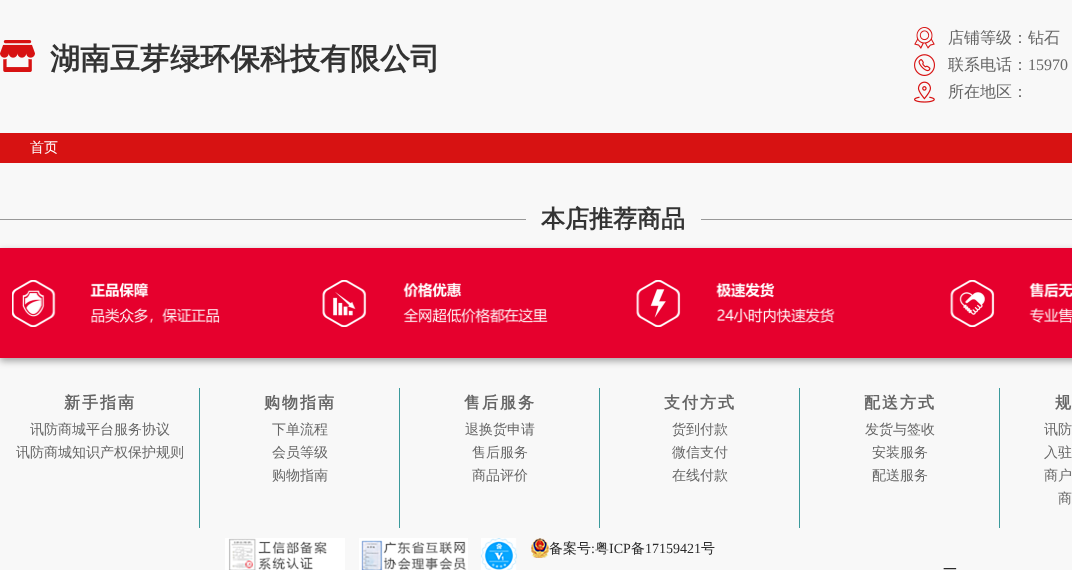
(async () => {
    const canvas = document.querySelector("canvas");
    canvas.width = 1072;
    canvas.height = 570;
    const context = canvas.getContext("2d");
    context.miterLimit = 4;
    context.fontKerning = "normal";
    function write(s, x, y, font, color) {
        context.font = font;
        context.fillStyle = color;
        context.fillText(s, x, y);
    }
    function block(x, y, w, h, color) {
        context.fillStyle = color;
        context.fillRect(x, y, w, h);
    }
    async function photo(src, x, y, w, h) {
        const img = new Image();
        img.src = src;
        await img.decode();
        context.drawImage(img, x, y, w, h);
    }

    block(0, 0, 1072, 570, "rgb(248, 248, 248)");
    await photo("media/1.png", 0, 40, 35, 32);
    write("湖南豆芽绿环保科技有限公司", 50, 69, "bold 30px WenQuanYi Zen Hei", "rgb(51, 51, 51)");
    await photo("media/2.png", 914, 27, 21, 22);
    write("店铺等级：钻石", 948, 43, "500 16px WenQuanYi Zen Hei", "rgb(102, 102, 102)");
    await photo("media/3.png", 914, 54, 21, 22);
    write("联系电话：", 948, 70, "500 16px WenQuanYi Zen Hei", "rgb(102, 102, 102)");
    write("15970", 1028, 70, "16px Liberation Serif", "rgb(102, 102, 102)");
    await photo("media/4.png", 914, 81, 21, 22);
    write("所在地区：", 948, 97, "500 16px WenQuanYi Zen Hei", "rgb(102, 102, 102)");
    block(0, 133, 1072, 30, "rgb(215, 18, 18)");
    write("首页", 30, 152, "500 14px WenQuanYi Zen Hei", "rgb(255, 255, 255)");
    block(0, 219, 1072, 1, "rgb(153, 153, 153)");
    block(526, 219, 175, 1, "rgb(248, 248, 248)");
    write("本店推荐商品", 541, 227, "bold 24px WenQuanYi Zen Hei", "rgb(51, 51, 51)");
    context.fillStyle = "rgba(0, 0, 0, 0.35)";
    context.filter = "blur(3.5px)";
    context.beginPath();
    context.rect(0, 251, 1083, 110);
    context.fill();
    context.filter = "none";
    block(0, 248, 1072, 110, "rgb(230, 0, 45)");
    await photo("media/5.png", 12, 280, 1060, 47);
    context.letterSpacing = "2px";
    write("新手指南", 64, 408, "bold 16px WenQuanYi Zen Hei", "rgb(102, 102, 102)");
    block(199, 388, 1, 140, "rgb(59, 154, 156)");
    context.letterSpacing = "0px";
    write("讯防商城平台服务协议", 30, 434, "500 14px WenQuanYi Zen Hei", "rgb(102, 102, 102)");
    write("讯防商城知识产权保护规则", 16, 457, "500 14px WenQuanYi Zen Hei", "rgb(102, 102, 102)");
    context.letterSpacing = "2px";
    write("购物指南", 264, 408, "bold 16px WenQuanYi Zen Hei", "rgb(102, 102, 102)");
    block(399, 388, 1, 140, "rgb(59, 154, 156)");
    context.letterSpacing = "0px";
    write("下单流程", 272, 434, "500 14px WenQuanYi Zen Hei", "rgb(102, 102, 102)");
    write("会员等级", 272, 457, "500 14px WenQuanYi Zen Hei", "rgb(102, 102, 102)");
    write("购物指南", 272, 480, "500 14px WenQuanYi Zen Hei", "rgb(102, 102, 102)");
    context.letterSpacing = "2px";
    write("售后服务", 464, 408, "bold 16px WenQuanYi Zen Hei", "rgb(102, 102, 102)");
    block(599, 388, 1, 140, "rgb(59, 154, 156)");
    context.letterSpacing = "0px";
    write("退换货申请", 465, 434, "500 14px WenQuanYi Zen Hei", "rgb(102, 102, 102)");
    write("售后服务", 472, 457, "500 14px WenQuanYi Zen Hei", "rgb(102, 102, 102)");
    write("商品评价", 472, 480, "500 14px WenQuanYi Zen Hei", "rgb(102, 102, 102)");
    context.letterSpacing = "2px";
    write("支付方式", 664, 408, "bold 16px WenQuanYi Zen Hei", "rgb(102, 102, 102)");
    block(799, 388, 1, 140, "rgb(59, 154, 156)");
    context.letterSpacing = "0px";
    write("货到付款", 672, 434, "500 14px WenQuanYi Zen Hei", "rgb(102, 102, 102)");
    write("微信支付", 672, 457, "500 14px WenQuanYi Zen Hei", "rgb(102, 102, 102)");
    write("在线付款", 672, 480, "500 14px WenQuanYi Zen Hei", "rgb(102, 102, 102)");
    context.letterSpacing = "2px";
    write("配送方式", 864, 408, "bold 16px WenQuanYi Zen Hei", "rgb(102, 102, 102)");
    block(999, 388, 1, 140, "rgb(59, 154, 156)");
    context.letterSpacing = "0px";
    write("发货与签收", 865, 434, "500 14px WenQuanYi Zen Hei", "rgb(102, 102, 102)");
    write("安装服务", 872, 457, "500 14px WenQuanYi Zen Hei", "rgb(102, 102, 102)");
    write("配送服务", 872, 480, "500 14px WenQuanYi Zen Hei", "rgb(102, 102, 102)");
    context.letterSpacing = "2px";
    write("规", 1055, 408, "bold 16px WenQuanYi Zen Hei", "rgb(102, 102, 102)");
    context.letterSpacing = "0px";
    write("讯防", 1044, 434, "500 14px WenQuanYi Zen Hei", "rgb(102, 102, 102)");
    write("入驻", 1044, 457, "500 14px WenQuanYi Zen Hei", "rgb(102, 102, 102)");
    write("商户", 1044, 480, "500 14px WenQuanYi Zen Hei", "rgb(102, 102, 102)");
    write("商", 1058, 503, "500 14px WenQuanYi Zen Hei", "rgb(102, 102, 102)");
    await photo("media/6.png", 225, 538, 120, 32);
    await photo("media/7.png", 359, 538, 109, 32);
    await photo("media/8.png", 481, 538, 36, 32);
    await photo("media/9.png", 531, 538, 18, 20);
    write("备案号", 549, 553, "500 14px WenQuanYi Zen Hei", "rgb(43, 43, 43)");
    write(":", 591, 553, "14px Liberation Serif", "rgb(43, 43, 43)");
    write("粤", 595, 553, "500 14px WenQuanYi Zen Hei", "rgb(43, 43, 43)");
    write("ICP", 609, 553, "14px Liberation Serif", "rgb(43, 43, 43)");
    write("备", 631, 553, "500 14px WenQuanYi Zen Hei", "rgb(43, 43, 43)");
    write("17159421", 645, 553, "14px Liberation Serif", "rgb(43, 43, 43)");
    write("号", 701, 553, "500 14px WenQuanYi Zen Hei", "rgb(43, 43, 43)");
    write("一", 943, 574, "500 14px WenQuanYi Zen Hei", "rgb(43, 43, 43)");
})();
